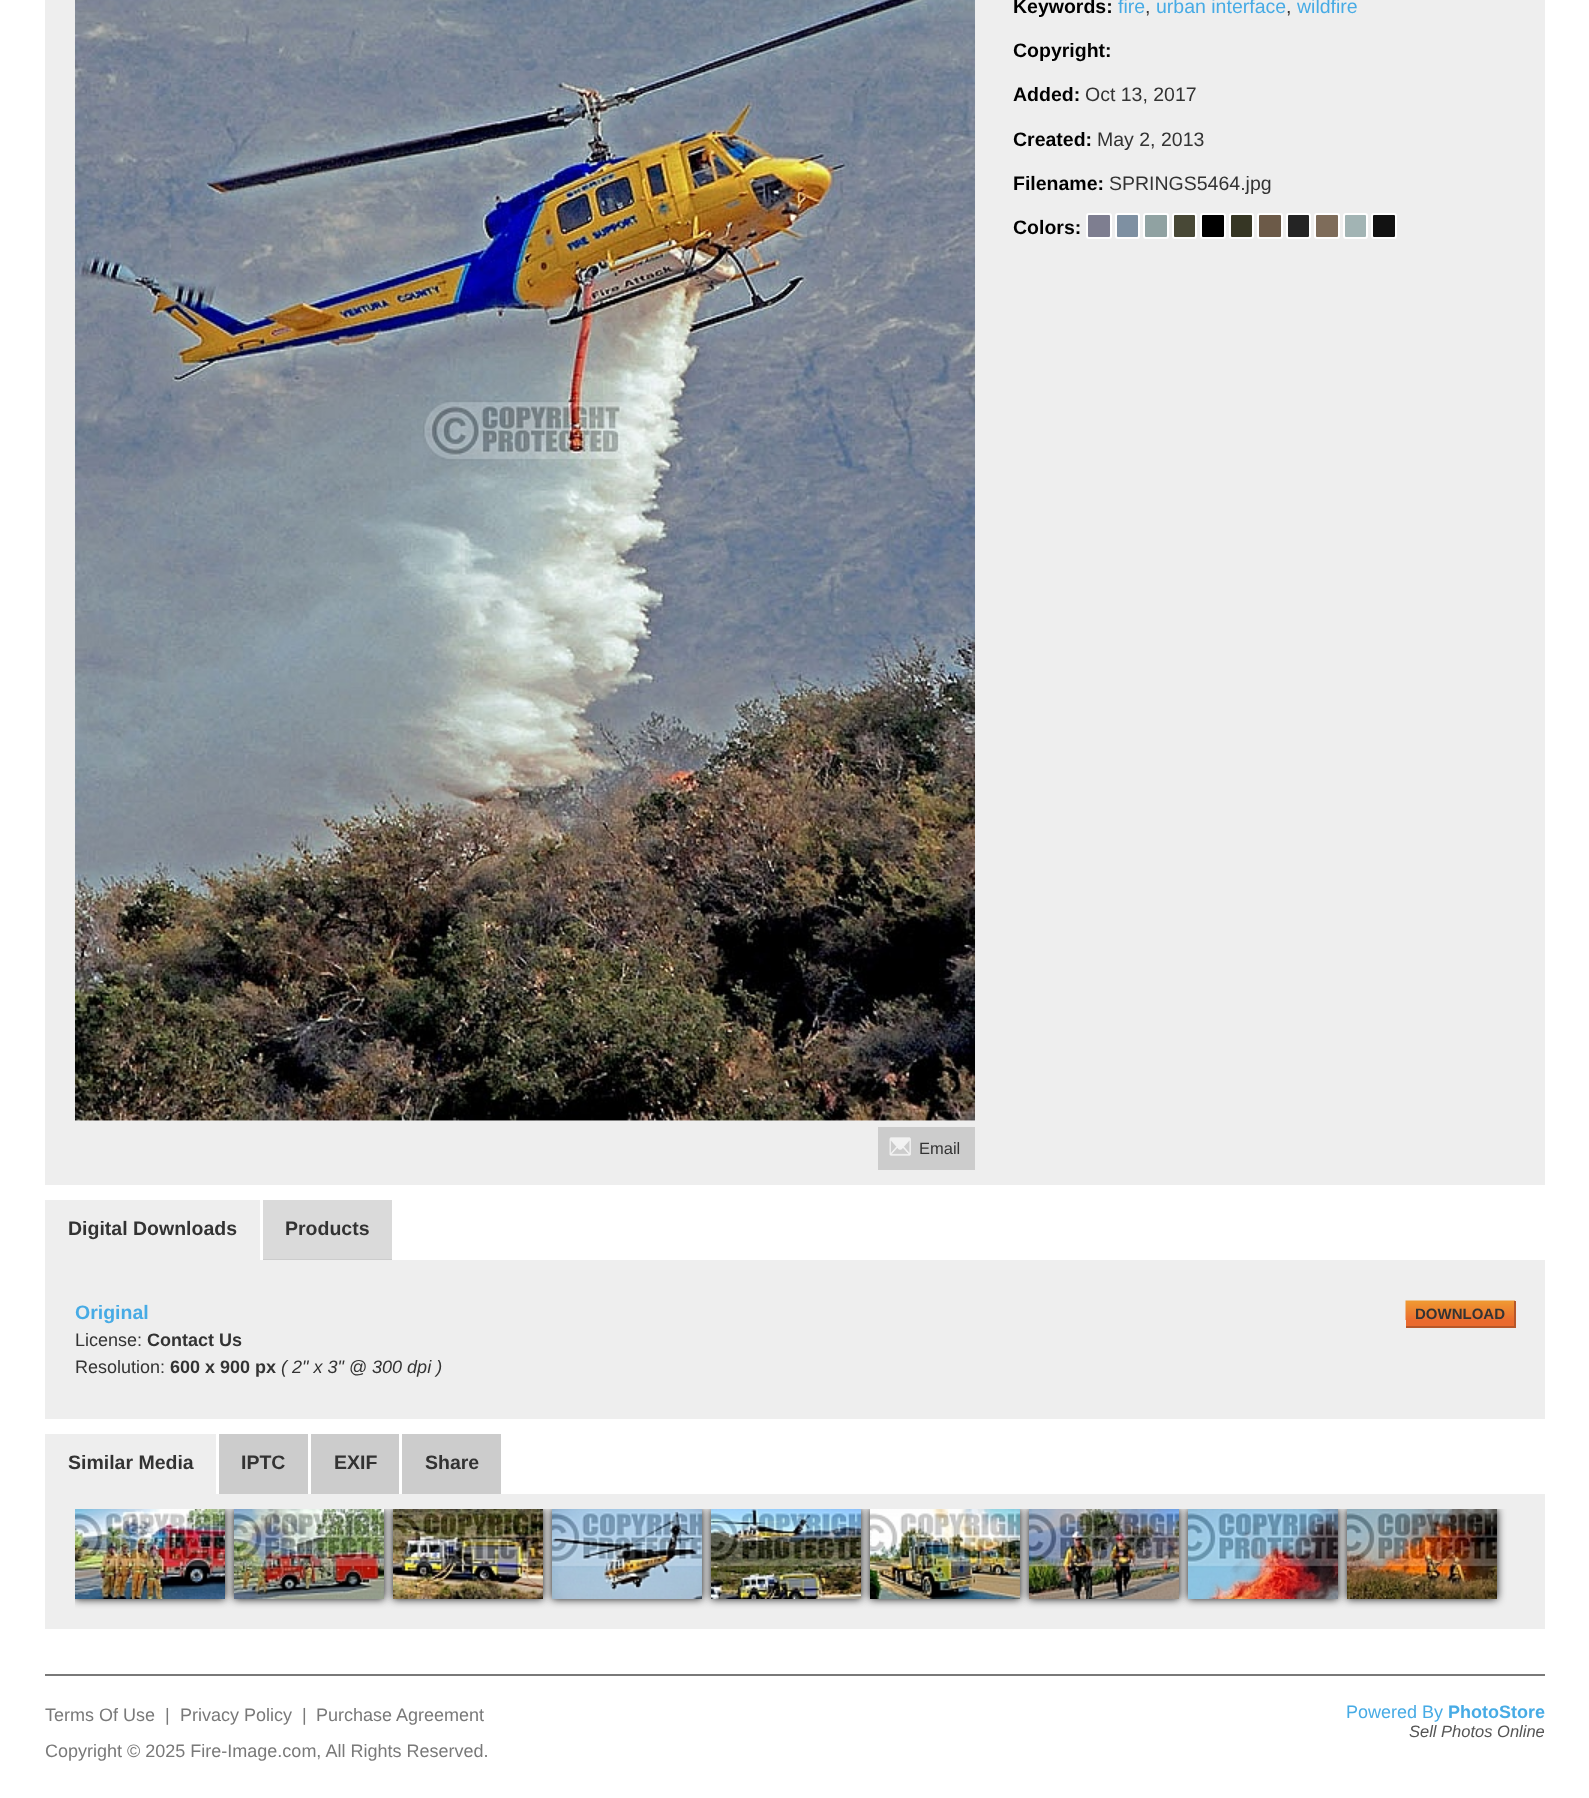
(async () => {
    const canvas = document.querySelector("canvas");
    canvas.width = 1589;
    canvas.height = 1798;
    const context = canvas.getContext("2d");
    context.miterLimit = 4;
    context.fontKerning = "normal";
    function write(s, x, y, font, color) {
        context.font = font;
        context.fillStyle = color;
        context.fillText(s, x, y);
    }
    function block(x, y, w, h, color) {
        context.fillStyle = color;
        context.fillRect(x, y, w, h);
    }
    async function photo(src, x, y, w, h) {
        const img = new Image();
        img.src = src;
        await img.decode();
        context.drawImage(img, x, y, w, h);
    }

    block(0, 0, 1589, 1798, "rgb(255, 255, 255)");
    block(45, 0, 1500, 1185, "rgb(238, 238, 238)");
    write("Keywords:", 1013, 13, "bold 19.5px Liberation Sans", "rgb(0, 0, 0)");
    write("fire", 1118, 13, "19.5px Liberation Sans", "rgb(71, 171, 229)");
    write(",", 1145, 13, "19.5px Liberation Sans", "rgb(51, 51, 51)");
    write("urban interface", 1156, 13, "19.5px Liberation Sans", "rgb(71, 171, 229)");
    write(",", 1286, 13, "19.5px Liberation Sans", "rgb(51, 51, 51)");
    write("wildfire", 1297, 13, "19.5px Liberation Sans", "rgb(71, 171, 229)");
    write("Copyright:", 1013, 57, "bold 19.5px Liberation Sans", "rgb(0, 0, 0)");
    write("Added:", 1013, 101, "bold 19.5px Liberation Sans", "rgb(0, 0, 0)");
    write("Oct 13, 2017", 1085, 101, "19.5px Liberation Sans", "rgb(51, 51, 51)");
    write("Created:", 1013, 146, "bold 19.5px Liberation Sans", "rgb(0, 0, 0)");
    write("May 2, 2013", 1097, 146, "19.5px Liberation Sans", "rgb(51, 51, 51)");
    write("Filename:", 1013, 190, "bold 19.5px Liberation Sans", "rgb(0, 0, 0)");
    write("SPRINGS5464.jpg", 1109, 190, "19.5px Liberation Sans", "rgb(51, 51, 51)");
    write("Colors:", 1013, 234, "bold 19.5px Liberation Sans", "rgb(0, 0, 0)");
    context.fillStyle = "rgb(126, 126, 144)";
    context.beginPath();
    context.roundRect(1087, 214, 24, 24, 2);
    context.fill();
    context.strokeStyle = "rgb(255, 255, 255)";
    context.lineWidth = 2;
    context.stroke();
    context.fillStyle = "rgb(126, 144, 162)";
    context.beginPath();
    context.roundRect(1116, 214, 23, 24, 2);
    context.fill();
    context.stroke();
    context.fillStyle = "rgb(144, 162, 162)";
    context.beginPath();
    context.roundRect(1144, 214, 24, 24, 2);
    context.fill();
    context.stroke();
    context.fillStyle = "rgb(72, 72, 54)";
    context.beginPath();
    context.roundRect(1173, 214, 23, 24, 2);
    context.fill();
    context.stroke();
    context.fillStyle = "rgb(0, 0, 0)";
    context.beginPath();
    context.roundRect(1201, 214, 24, 24, 2);
    context.fill();
    context.stroke();
    context.fillStyle = "rgb(54, 54, 36)";
    context.beginPath();
    context.roundRect(1230, 214, 23, 24, 2);
    context.fill();
    context.stroke();
    context.fillStyle = "rgb(108, 90, 72)";
    context.beginPath();
    context.roundRect(1258, 214, 24, 24, 2);
    context.fill();
    context.stroke();
    context.fillStyle = "rgb(36, 36, 36)";
    context.beginPath();
    context.roundRect(1287, 214, 23, 24, 2);
    context.fill();
    context.stroke();
    context.fillStyle = "rgb(126, 108, 90)";
    context.beginPath();
    context.roundRect(1315, 214, 24, 24, 2);
    context.fill();
    context.stroke();
    context.fillStyle = "rgb(162, 180, 180)";
    context.beginPath();
    context.roundRect(1344, 214, 23, 24, 2);
    context.fill();
    context.stroke();
    context.fillStyle = "rgb(18, 18, 18)";
    context.beginPath();
    context.roundRect(1372, 214, 24, 24, 2);
    context.fill();
    context.stroke();
    block(75, 1120, 900, 1, "rgb(255, 255, 255)");
    await photo("media/1.png", 75, 0, 900, 1121);
    block(878, 1127, 97, 43, "rgb(204, 204, 204)");
    await photo("media/2.png", 889, 1137, 22, 19);
    write("Email", 919, 1154, "16.5px Liberation Sans", "rgb(51, 51, 51)");
    block(45, 1200, 215, 60, "rgb(238, 238, 238)");
    write("Digital Downloads", 68, 1235, "bold 19.5px Liberation Sans", "rgb(51, 51, 51)");
    block(263, 1200, 129, 59, "rgb(218, 218, 218)");
    block(263, 1259, 129, 1, "rgb(204, 204, 204)");
    write("Products", 285, 1235, "bold 19.5px Liberation Sans", "rgb(51, 51, 51)");
    block(45, 1260, 1500, 159, "rgb(238, 238, 238)");
    write("Original", 75, 1319, "bold 19.5px Liberation Sans", "rgb(71, 171, 229)");
    write("License:", 75, 1346, "18px Liberation Sans", "rgb(51, 51, 51)");
    write("Contact Us", 147, 1346, "bold 18px Liberation Sans", "rgb(51, 51, 51)");
    write("Resolution:", 75, 1373, "18px Liberation Sans", "rgb(51, 51, 51)");
    write("600 x 900 px", 170, 1373, "bold 18px Liberation Sans", "rgb(51, 51, 51)");
    write("( 2\" x 3\" @ 300 dpi )", 281, 1373, "italic 18px Liberation Sans", "rgb(51, 51, 51)");
    await photo("media/3.png", 1405, 1300, 110, 20);
    write("DOWNLOAD", 1415, 1319, "bold 15px Liberation Sans", "rgb(51, 51, 51)");
    block(1406, 1320, 108, 6, "rgb(234, 106, 46)");
    block(1514, 1301, 2, 27, "rgb(183, 87, 42)");
    block(1406, 1326, 109, 2, "rgb(183, 87, 42)");
    block(45, 1434, 171, 60, "rgb(238, 238, 238)");
    write("Similar Media", 68, 1469, "bold 19.5px Liberation Sans", "rgb(51, 51, 51)");
    block(219, 1434, 89, 60, "rgb(204, 204, 204)");
    write("IPTC", 241, 1469, "bold 19.5px Liberation Sans", "rgb(51, 51, 51)");
    block(311, 1434, 88, 60, "rgb(204, 204, 204)");
    write("EXIF", 334, 1469, "bold 19.5px Liberation Sans", "rgb(51, 51, 51)");
    block(402, 1434, 99, 60, "rgb(204, 204, 204)");
    write("Share", 425, 1469, "bold 19.5px Liberation Sans", "rgb(51, 51, 51)");
    block(45, 1494, 1500, 135, "rgb(238, 238, 238)");
    context.save();
    context.beginPath();
    context.rect(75, 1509, 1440, 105);
    context.clip();
    context.fillStyle = "rgb(17, 17, 17)";
    context.filter = "blur(4.5px)";
    context.beginPath();
    context.rect(75, 1509, 150, 90);
    context.fill();
    context.filter = "none";
    context.restore();
    await photo("media/4.png", 75, 1509, 150, 90);
    context.save();
    context.beginPath();
    context.rect(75, 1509, 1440, 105);
    context.clip();
    context.fillStyle = "rgb(17, 17, 17)";
    context.filter = "blur(4.5px)";
    context.beginPath();
    context.rect(234, 1509, 150, 90);
    context.fill();
    context.filter = "none";
    context.restore();
    await photo("media/5.png", 234, 1509, 150, 90);
    context.save();
    context.beginPath();
    context.rect(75, 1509, 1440, 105);
    context.clip();
    context.fillStyle = "rgb(17, 17, 17)";
    context.filter = "blur(4.5px)";
    context.beginPath();
    context.rect(393, 1509, 150, 90);
    context.fill();
    context.filter = "none";
    context.restore();
    await photo("media/6.png", 393, 1509, 150, 90);
    context.save();
    context.beginPath();
    context.rect(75, 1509, 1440, 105);
    context.clip();
    context.fillStyle = "rgb(17, 17, 17)";
    context.filter = "blur(4.5px)";
    context.beginPath();
    context.rect(552, 1509, 150, 90);
    context.fill();
    context.filter = "none";
    context.restore();
    await photo("media/7.png", 552, 1509, 150, 90);
    context.save();
    context.beginPath();
    context.rect(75, 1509, 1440, 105);
    context.clip();
    context.fillStyle = "rgb(17, 17, 17)";
    context.filter = "blur(4.5px)";
    context.beginPath();
    context.rect(711, 1509, 150, 90);
    context.fill();
    context.filter = "none";
    context.restore();
    await photo("media/8.png", 711, 1509, 150, 90);
    context.save();
    context.beginPath();
    context.rect(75, 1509, 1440, 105);
    context.clip();
    context.fillStyle = "rgb(17, 17, 17)";
    context.filter = "blur(4.5px)";
    context.beginPath();
    context.rect(870, 1509, 150, 90);
    context.fill();
    context.filter = "none";
    context.restore();
    await photo("media/9.png", 870, 1509, 150, 90);
    context.save();
    context.beginPath();
    context.rect(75, 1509, 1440, 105);
    context.clip();
    context.fillStyle = "rgb(17, 17, 17)";
    context.filter = "blur(4.5px)";
    context.beginPath();
    context.rect(1029, 1509, 150, 90);
    context.fill();
    context.filter = "none";
    context.restore();
    await photo("media/10.png", 1029, 1509, 150, 90);
    context.save();
    context.beginPath();
    context.rect(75, 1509, 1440, 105);
    context.clip();
    context.fillStyle = "rgb(17, 17, 17)";
    context.filter = "blur(4.5px)";
    context.beginPath();
    context.rect(1188, 1509, 150, 90);
    context.fill();
    context.filter = "none";
    context.restore();
    await photo("media/11.png", 1188, 1509, 150, 90);
    context.save();
    context.beginPath();
    context.rect(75, 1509, 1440, 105);
    context.clip();
    context.fillStyle = "rgb(17, 17, 17)";
    context.filter = "blur(4.5px)";
    context.beginPath();
    context.rect(1347, 1509, 150, 90);
    context.fill();
    context.filter = "none";
    context.restore();
    await photo("media/12.png", 1347, 1509, 150, 90);
    block(45, 1674, 1500, 2, "rgb(121, 121, 121)");
    write("Terms Of Use", 45, 1721, "18px Liberation Sans", "rgb(121, 121, 121)");
    write("|", 165, 1721, "18px Liberation Sans", "rgb(121, 121, 121)");
    write("Privacy Policy", 180, 1721, "18px Liberation Sans", "rgb(121, 121, 121)");
    write("|", 302, 1721, "18px Liberation Sans", "rgb(121, 121, 121)");
    write("Purchase Agreement", 316, 1721, "18px Liberation Sans", "rgb(121, 121, 121)");
    write("Powered By", 1346, 1718, "18px Liberation Sans", "rgb(71, 171, 229)");
    write("PhotoStore", 1448, 1718, "bold 18px Liberation Sans", "rgb(71, 171, 229)");
    write("Sell Photos Online", 1409, 1737, "italic 16.5px Liberation Sans", "rgb(85, 85, 85)");
    write("Copyright © 2025 Fire-Image.com, All Rights Reserved.", 45, 1757, "18px Liberation Sans", "rgb(121, 121, 121)");
})();
